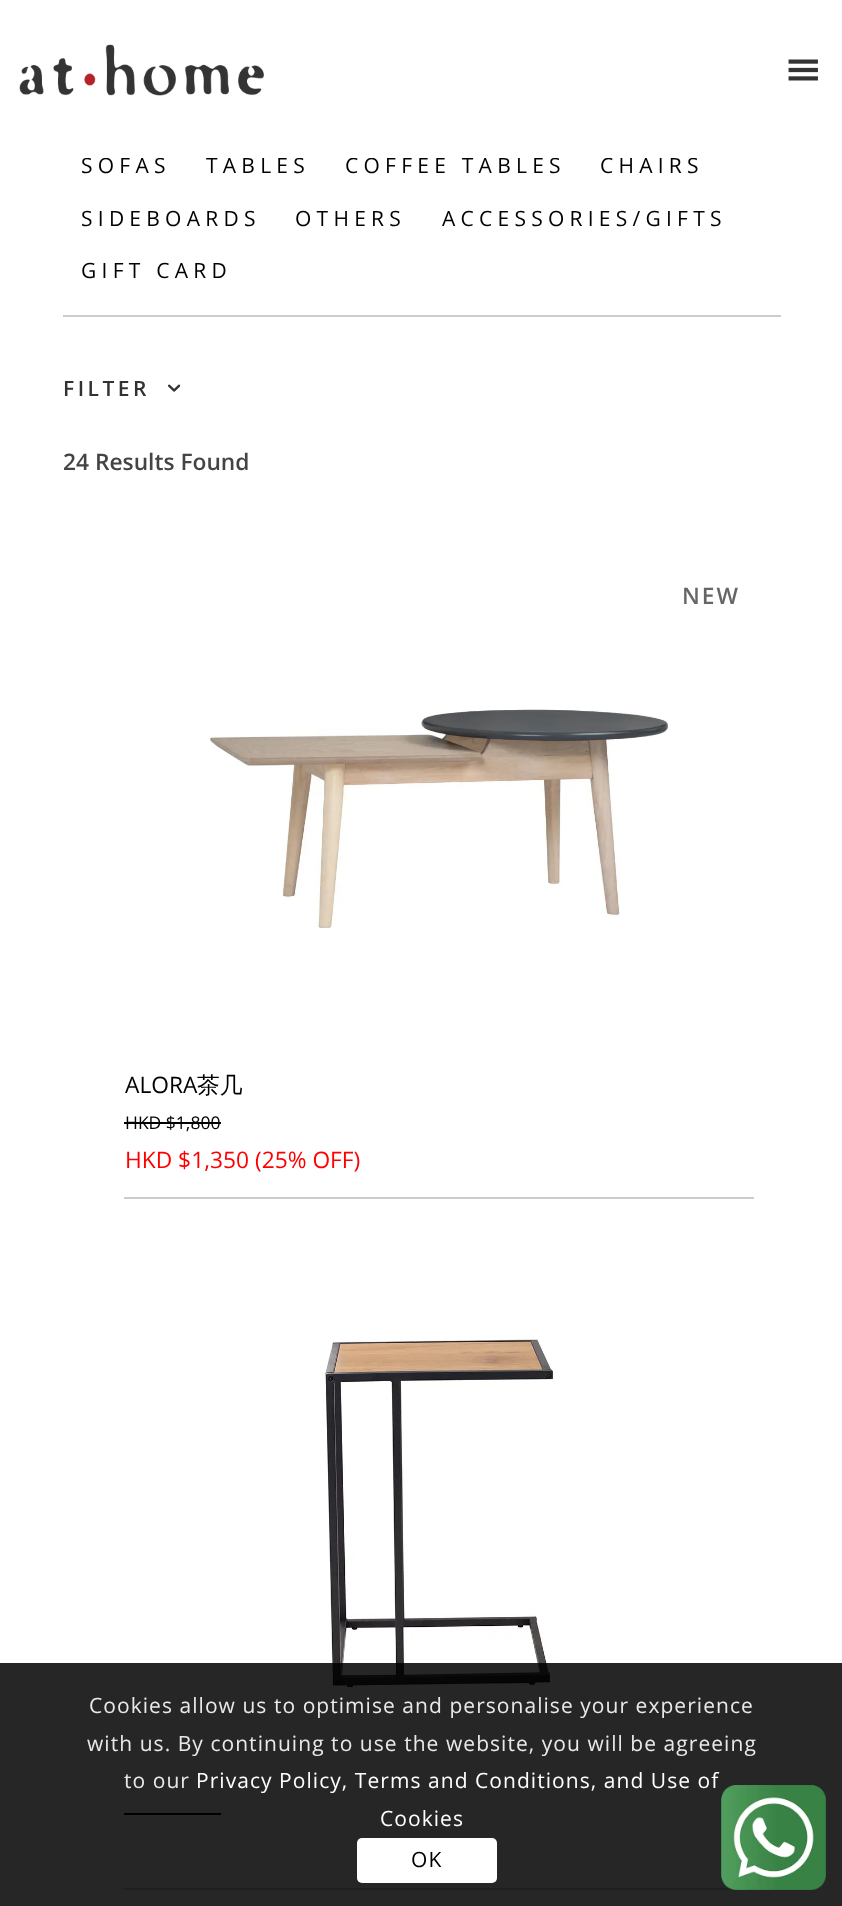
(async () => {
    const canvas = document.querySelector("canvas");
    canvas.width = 842;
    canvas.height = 1906;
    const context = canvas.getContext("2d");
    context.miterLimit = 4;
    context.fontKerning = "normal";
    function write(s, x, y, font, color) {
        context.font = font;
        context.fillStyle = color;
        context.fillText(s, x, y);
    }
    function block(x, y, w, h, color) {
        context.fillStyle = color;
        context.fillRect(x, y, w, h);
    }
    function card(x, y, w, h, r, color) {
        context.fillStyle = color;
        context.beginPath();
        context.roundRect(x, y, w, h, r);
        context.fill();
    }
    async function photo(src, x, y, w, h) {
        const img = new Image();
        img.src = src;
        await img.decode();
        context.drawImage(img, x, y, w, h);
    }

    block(0, 0, 842, 1906, "rgb(255, 255, 255)");
    await photo("media/1.png", 19, 44, 245, 52);
    await photo("media/2.png", 788, 59, 30, 22);
    context.letterSpacing = "5.25px";
    write("SOFAS", 81, 173, "21px Open Sans", "rgb(0, 0, 0)");
    write("TABLES", 206, 173, "21px Open Sans", "rgb(0, 0, 0)");
    write("COFFEE TABLES", 345, 173, "21px Open Sans", "rgb(0, 0, 0)");
    write("CHAIRS", 600, 173, "21px Open Sans", "rgb(0, 0, 0)");
    block(85, 157, 611, 1, "rgb(255, 255, 255)");
    block(63, 315, 718, 2, "rgb(204, 204, 204)");
    write("SIDEBOARDS", 81, 226, "21px Open Sans", "rgb(0, 0, 0)");
    write("OTHERS", 295, 226, "21px Open Sans", "rgb(0, 0, 0)");
    write("ACCESSORIES/GIFTS", 442, 226, "21px Open Sans", "rgb(0, 0, 0)");
    write("GIFT CARD", 81, 278, "21px Open Sans", "rgb(0, 0, 0)");
    context.letterSpacing = "3.5px";
    write("FILTER", 63, 396, "600 21px Open Sans", "rgb(50, 50, 50)");
    await photo("media/3.png", 168, 384, 13, 8);
    context.letterSpacing = "0px";
    write("24 Results Found", 63, 470, "600 22.75px Open Sans", "rgb(68, 68, 68)");
    context.letterSpacing = "2px";
    write("NEW", 682, 604, "600 22.75px Open Sans", "rgb(102, 102, 102)");
    await photo("media/4.png", 210, 709, 458, 220);
    block(124, 1197, 630, 2, "rgb(204, 204, 204)");
    context.letterSpacing = "0px";
    write("ALORA", 125, 1093, "22.75px Open Sans", "rgb(0, 0, 0)");
    write("茶几", 197, 1093, "500 22.75px WenQuanYi Zen Hei", "rgb(0, 0, 0)");
    write("HKD $1,800", 125, 1129, "17.5px Open Sans", "rgb(0, 0, 0)");
    block(124, 1122, 97, 2, "rgb(0, 0, 0)");
    write("HKD $1,350 (25% OFF)", 125, 1168, "22.75px Open Sans", "rgb(255, 0, 0)");
    await photo("media/5.png", 324, 1339, 231, 350);
    block(124, 1888, 630, 2, "rgb(204, 204, 204)");
    block(124, 1813, 97, 2, "rgb(0, 0, 0)");
    block(0, 1663, 842, 243, "rgba(0, 0, 0, 0.85)");
    context.letterSpacing = "1.05px";
    write("Cookies allow us to optimise and personalise your experience", 89, 1713, "21px Open Sans", "rgb(233, 233, 233)");
    write("with us. By continuing to use the website, you will be agreeing", 87, 1751, "21px Open Sans", "rgb(233, 233, 233)");
    write("to our", 124, 1788, "21px Open Sans", "rgb(233, 233, 233)");
    write("Privacy Policy, Terms and Conditions, and Use of", 196, 1788, "21px Open Sans", "rgb(255, 255, 255)");
    write("Cookies", 380, 1826, "21px Open Sans", "rgb(255, 255, 255)");
    card(357, 1838, 140, 45, 5, "rgb(255, 255, 255)");
    write("OK", 411, 1867, "21px Open Sans", "rgb(0, 0, 0)");
    await photo("media/6.png", 721, 1785, 105, 105);
})();
